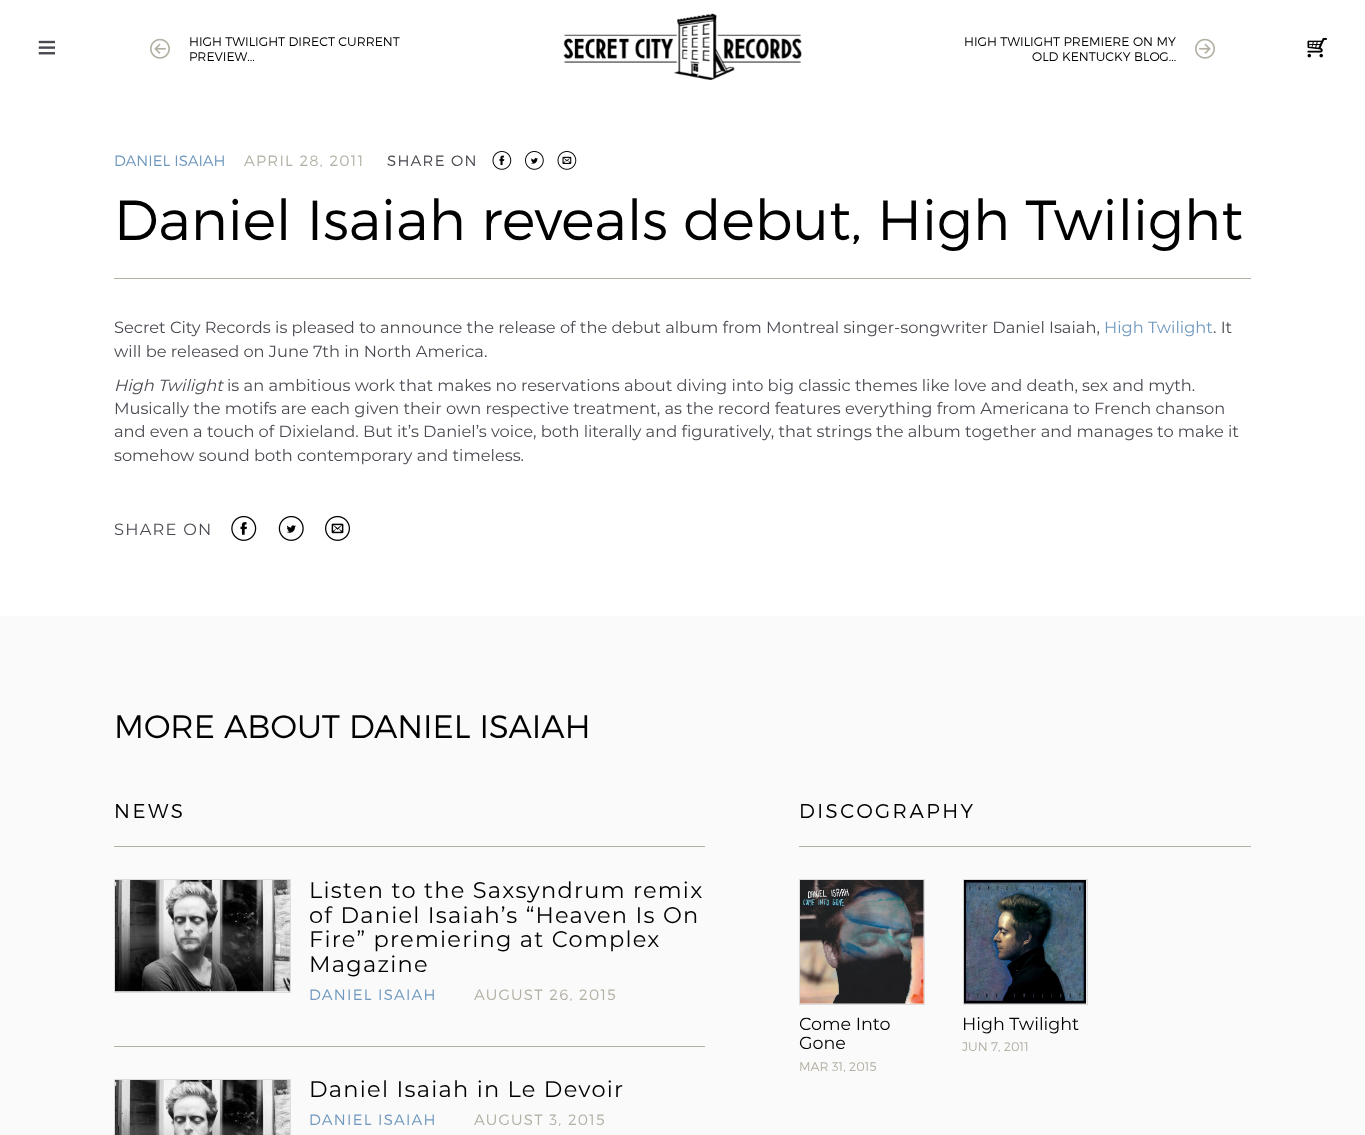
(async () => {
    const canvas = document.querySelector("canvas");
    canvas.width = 1365;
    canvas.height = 1135;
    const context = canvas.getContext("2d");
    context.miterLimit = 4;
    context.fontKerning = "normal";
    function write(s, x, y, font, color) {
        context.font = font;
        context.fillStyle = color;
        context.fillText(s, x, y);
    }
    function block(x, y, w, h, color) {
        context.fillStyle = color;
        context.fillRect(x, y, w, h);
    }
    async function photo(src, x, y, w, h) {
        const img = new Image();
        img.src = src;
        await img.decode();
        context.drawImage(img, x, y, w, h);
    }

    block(0, 0, 1365, 1135, "rgb(255, 255, 255)");
    await photo("media/1.png", 38, 40, 17, 15);
    await photo("media/2.png", 150, 38, 20, 21);
    write("HIGH TWILIGHT DIRECT CURRENT", 189, 46, "300 12.5px Montserrat", "rgb(0, 0, 0)");
    write("PREVIEW...", 189, 61, "300 12.5px Montserrat", "rgb(0, 0, 0)");
    await photo("media/3.png", 563, 13, 239, 67);
    write("HIGH TWILIGHT PREMIERE ON MY", 964, 46, "300 12.5px Montserrat", "rgb(0, 0, 0)");
    write("OLD KENTUCKY BLOG...", 1032, 61, "300 12.5px Montserrat", "rgb(0, 0, 0)");
    await photo("media/4.png", 1195, 38, 20, 21);
    await photo("media/5.png", 1307, 37, 20, 21);
    block(114, 278, 1137, 1, "rgb(178, 175, 163)");
    write("DANIEL ISAIAH", 114, 166, "300 15px Montserrat", "rgb(111, 152, 190)");
    context.letterSpacing = "1.25px";
    write("APRIL 28, 2011", 244, 166, "300 15px Montserrat", "rgb(178, 175, 163)");
    write("SHARE ON", 387, 166, "300 15px Montserrat", "rgb(73, 73, 81)");
    await photo("media/6.png", 492, 151, 20, 19);
    await photo("media/7.png", 525, 151, 19, 19);
    await photo("media/8.png", 557, 151, 20, 19);
    context.letterSpacing = "0px";
    write("Daniel Isaiah reveals debut, High Twilight", 114, 240, "300 56.25px Montserrat", "rgb(0, 0, 0)");
    write("Secret City Records is pleased to announce the release of the debut album from Montreal singer-songwriter Daniel Isaiah,", 114, 333, "16.25px Montserrat", "rgb(73, 73, 81)");
    write("High Twilight", 1104, 333, "16.25px Montserrat", "rgb(111, 152, 190)");
    write(". It", 1213, 333, "16.25px Montserrat", "rgb(73, 73, 81)");
    write("will be released on June 7th in North America.", 114, 357, "16.25px Montserrat", "rgb(73, 73, 81)");
    write("High Twilight", 114, 391, "italic 16.25px Montserrat", "rgb(73, 73, 81)");
    write("is an ambitious work that makes no reservations about diving into big classic themes like love and death, sex and myth.", 227, 391, "16.25px Montserrat", "rgb(73, 73, 81)");
    write("Musically the motifs are each given their own respective treatment, as the record features everything from Americana to French chanson", 114, 414, "16.25px Montserrat", "rgb(73, 73, 81)");
    write("and even a touch of Dixieland. But it’s Daniel’s voice, both literally and figuratively, that strings the album together and manages to make it", 114, 437, "16.25px Montserrat", "rgb(73, 73, 81)");
    write("somehow sound both contemporary and timeless.", 114, 461, "16.25px Montserrat", "rgb(73, 73, 81)");
    context.letterSpacing = "1.25px";
    write("SHARE ON", 114, 535, "16.25px Montserrat", "rgb(73, 73, 81)");
    await photo("media/9.png", 231, 515, 26, 26);
    await photo("media/10.png", 278, 515, 26, 26);
    await photo("media/11.png", 325, 515, 25, 26);
    block(0, 616, 1365, 519, "rgb(250, 250, 250)");
    context.letterSpacing = "0px";
    write("MORE ABOUT DANIEL ISAIAH", 114, 738, "300 32.5px Montserrat", "rgb(0, 0, 0)");
    block(114, 846, 591, 1, "rgb(178, 175, 163)");
    context.letterSpacing = "2.5px";
    write("NEWS", 114, 818, "300 20px Montserrat", "rgb(0, 0, 0)");
    block(114, 1046, 591, 1, "rgb(178, 175, 163)");
    context.strokeStyle = "rgb(221, 221, 221)";
    context.strokeRect(114.5, 879.5, 176, 113);
    await photo("media/12.png", 115, 880, 175, 112);
    context.letterSpacing = "1.25px";
    write("Listen to the Saxsyndrum remix", 309, 898, "22.5px Montserrat", "rgb(0, 0, 0)");
    write("of Daniel Isaiah’s “Heaven Is On", 309, 923, "22.5px Montserrat", "rgb(0, 0, 0)");
    write("Fire” premiering at Complex", 309, 947, "22.5px Montserrat", "rgb(0, 0, 0)");
    write("Magazine", 309, 972, "22.5px Montserrat", "rgb(0, 0, 0)");
    write("DANIEL ISAIAH", 309, 1000, "300 15px Montserrat", "rgb(111, 152, 190)");
    write("AUGUST 26, 2015", 474, 1000, "300 15px Montserrat", "rgb(178, 175, 163)");
    context.strokeRect(114.5, 1079.5, 176, 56);
    await photo("media/13.png", 115, 1080, 175, 55);
    write("Daniel Isaiah in Le Devoir", 309, 1097, "22.5px Montserrat", "rgb(0, 0, 0)");
    write("DANIEL ISAIAH", 309, 1125, "300 15px Montserrat", "rgb(111, 152, 190)");
    write("AUGUST 3, 2015", 474, 1125, "300 15px Montserrat", "rgb(178, 175, 163)");
    block(799, 846, 452, 1, "rgb(178, 175, 163)");
    context.letterSpacing = "2.5px";
    write("DISCOGRAPHY", 799, 818, "300 20px Montserrat", "rgb(0, 0, 0)");
    context.strokeRect(799.5, 879.5, 125, 125);
    await photo("media/14.png", 800, 880, 124, 124);
    context.letterSpacing = "0px";
    write("Come Into", 799, 1030, "17.5px Montserrat", "rgb(0, 0, 0)");
    write("Gone", 799, 1049, "17.5px Montserrat", "rgb(0, 0, 0)");
    write("MAR 31, 2015", 799, 1071, "300 12.5px Montserrat", "rgb(178, 175, 163)");
    context.strokeRect(963.5, 879.5, 124, 125);
    await photo("media/15.png", 963, 880, 124, 124);
    write("High Twilight", 962, 1030, "17.5px Montserrat", "rgb(0, 0, 0)");
    write("JUN 7, 2011", 962, 1051, "300 12.5px Montserrat", "rgb(178, 175, 163)");
})();
